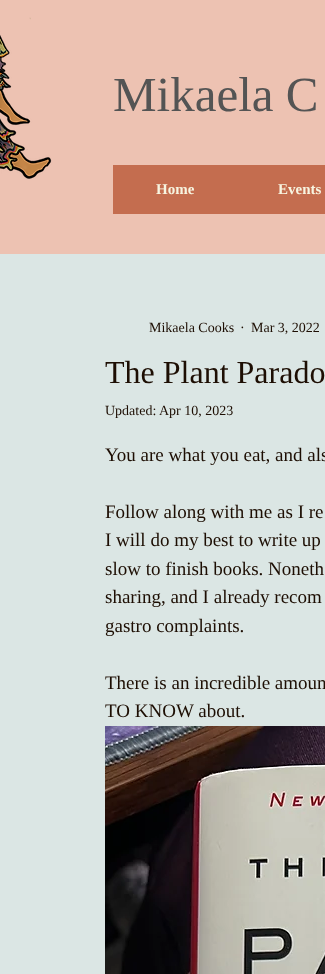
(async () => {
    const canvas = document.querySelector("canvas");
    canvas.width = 325;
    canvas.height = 974;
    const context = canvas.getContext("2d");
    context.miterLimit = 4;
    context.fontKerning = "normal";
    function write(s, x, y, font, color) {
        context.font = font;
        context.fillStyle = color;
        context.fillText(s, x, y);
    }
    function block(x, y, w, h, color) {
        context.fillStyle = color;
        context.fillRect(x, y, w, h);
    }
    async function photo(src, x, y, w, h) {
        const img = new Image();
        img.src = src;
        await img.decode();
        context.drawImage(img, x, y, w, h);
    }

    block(0, 0, 325, 974, "rgb(237, 194, 178)");
    await photo("media/1.png", 0, 17, 52, 162);
    write("Mikaela C", 113, 111, "49px Liberation Serif", "rgb(84, 84, 84)");
    block(113, 165, 212, 49, "rgb(196, 109, 79)");
    write("Home", 156, 194, "bold 15px Liberation Serif", "rgb(247, 245, 225)");
    write("Events", 278, 194, "bold 15px Liberation Serif", "rgb(247, 245, 225)");
    block(0, 254, 325, 720, "rgb(219, 230, 228)");
    write("Mikaela Cooks", 149, 332, "14px Liberation Serif", "rgb(29, 14, 3)");
    write("·", 240, 332, "14px Liberation Serif", "rgb(29, 14, 3)");
    write("Mar 3, 2022", 251, 332, "14px Liberation Serif", "rgb(29, 14, 3)");
    write("The Plant Parado", 105, 383, "32px Liberation Serif", "rgb(29, 14, 3)");
    write("Updated:", 105, 415, "14px Liberation Serif", "rgb(29, 14, 3)");
    write("Apr 10, 2023", 159, 415, "14px Liberation Serif", "rgb(29, 14, 3)");
    write("You are what you eat, and als", 105, 461, "19px Liberation Serif", "rgb(29, 14, 3)");
    write("Follow along with me as I re", 105, 518, "19px Liberation Serif", "rgb(29, 14, 3)");
    write("I will do my best to write up", 105, 546, "19px Liberation Serif", "rgb(29, 14, 3)");
    write("slow to finish books. Noneth", 105, 575, "19px Liberation Serif", "rgb(29, 14, 3)");
    write("sharing, and I already recom", 105, 603, "19px Liberation Serif", "rgb(29, 14, 3)");
    write("gastro complaints.", 105, 632, "19px Liberation Serif", "rgb(29, 14, 3)");
    write("There is an incredible amoun", 105, 689, "19px Liberation Serif", "rgb(29, 14, 3)");
    write("TO KNOW about.", 105, 717, "19px Liberation Serif", "rgb(29, 14, 3)");
    await photo("media/2.png", 105, 726, 220, 248);
})();
